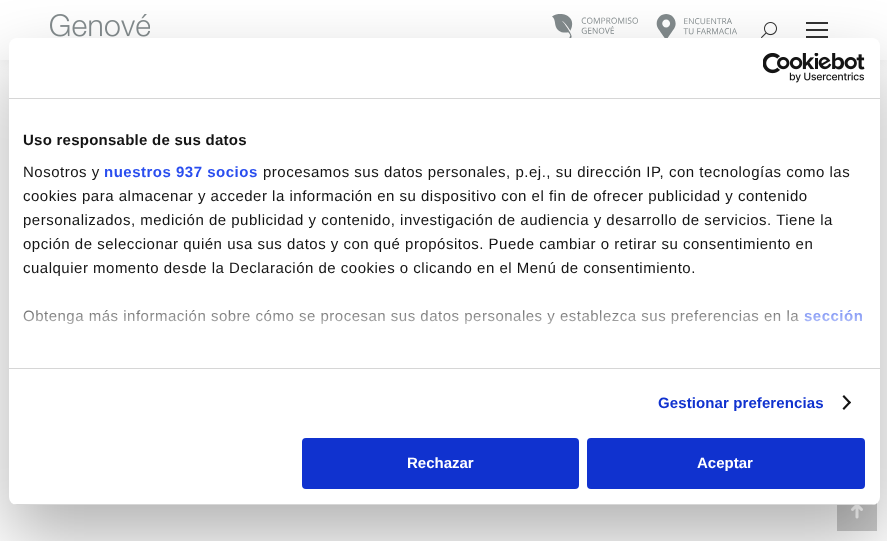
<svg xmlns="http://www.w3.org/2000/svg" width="887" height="541">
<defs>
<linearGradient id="g1" gradientUnits="userSpaceOnUse" x1="438" y1="368" x2="438" y2="293"><stop offset="0" stop-color="#fff"/><stop offset="0.5" stop-color="#fff" stop-opacity="0.8"/><stop offset="1" stop-color="#fff" stop-opacity="0"/></linearGradient>
<clipPath id="clip1"><rect x="9" y="38" width="871" height="467" rx="8"/></clipPath>
</defs>
<rect width="100%" height="100%" fill="#fff"/>
<rect x="-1" y="-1" width="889" height="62" fill="#00000012" filter="blur(7.5px)"/>
<rect width="887" height="60" fill="#fff"/>
<image x="50" y="14" width="100" height="23" href="media/1.png"/>
<image x="552" y="14" width="86" height="24" href="media/2.png"/>
<image x="656" y="14" width="81" height="24" href="media/3.png"/>
<image x="761" y="22" width="16" height="16" href="media/4.png"/>
<rect x="806" y="22" width="22" height="2" fill="#333"/>
<rect x="806" y="29" width="22" height="2" fill="#333"/>
<rect x="806" y="36" width="22" height="2" fill="#333"/>
<rect x="837" y="503" width="40" height="28" fill="#ccc"/>
<image x="851" y="505" width="12" height="14" href="media/5.png"/>
<rect x="9" y="70" width="871" height="467" rx="8" fill="#0000004d" filter="blur(34px)"/>
<rect x="9" y="38" width="871" height="467" rx="8" fill="#fff"/>
<rect x="9" y="98" width="871" height="1" fill="#d6d6d6"/>
<image x="763" y="53" width="102" height="30" href="media/6.png"/>
<rect x="9" y="368" width="871" height="1" fill="#d6d6d6"/>
<text x="23" y="145" style="font-family:Liberation Sans;font-size:15px;font-weight:bold;letter-spacing:0.25px;fill:#141414">Uso responsable de sus datos</text>
<text x="23" y="177" style="font-family:Liberation Sans;font-size:15px;letter-spacing:0.5px;fill:#141414">Nosotros y</text>
<text x="104" y="177" style="font-family:Liberation Sans;font-size:15px;font-weight:bold;letter-spacing:0.5px;fill:#2a4eef">nuestros 937 socios</text>
<text x="263" y="177" style="font-family:Liberation Sans;font-size:15px;letter-spacing:0.5px;fill:#141414">procesamos sus datos personales, p.ej., su dirección IP, con tecnologías como las</text>
<text x="23" y="201" style="font-family:Liberation Sans;font-size:15px;letter-spacing:0.5px;fill:#141414">cookies para almacenar y acceder la información en su dispositivo con el fin de ofrecer publicidad y contenido</text>
<text x="23" y="225" style="font-family:Liberation Sans;font-size:15px;letter-spacing:0.5px;fill:#141414">personalizados, medición de publicidad y contenido, investigación de audiencia y desarrollo de servicios. Tiene la</text>
<text x="23" y="249" style="font-family:Liberation Sans;font-size:15px;letter-spacing:0.5px;fill:#141414">opción de seleccionar quién usa sus datos y con qué propósitos. Puede cambiar o retirar su consentimiento en</text>
<text x="23" y="273" style="font-family:Liberation Sans;font-size:15px;letter-spacing:0.5px;fill:#141414">cualquier momento desde la Declaración de cookies o clicando en el Menú de consentimiento.</text>
<text x="23" y="321" style="font-family:Liberation Sans;font-size:15px;letter-spacing:0.5px;fill:#141414">Obtenga más información sobre cómo se procesan sus datos personales y establezca sus preferencias en la</text>
<text x="804" y="321" style="font-family:Liberation Sans;font-size:15px;font-weight:bold;letter-spacing:0.5px;fill:#2a4eef">sección</text>
<rect x="23" y="309" width="839" height="16" fill="url(#g1)"/>
<text x="658" y="408" style="font-family:Liberation Sans;font-size:15px;font-weight:bold;letter-spacing:0.1px;fill:#1032cf">Gestionar preferencias</text>
<path d="M844 395l7 7.5l-1.5 1.5l-7-7.5z" fill="#141414"/>
<path d="M849.5 401l1.5 1.5l-7 7.5l-1.5-1.5z" fill="#141414"/>
<g clip-path="url(#clip1)">
<rect x="9" y="504" width="871" height="1" fill="#d6d6d6"/>
</g>
<rect x="303" y="439" width="275" height="49" rx="3" fill="#1032cf" stroke="#1032cf" stroke-width="2"/>
<text x="407" y="468" style="font-family:Liberation Sans;font-size:15px;font-weight:bold;fill:#fff">Rechazar</text>
<rect x="588" y="439" width="276" height="49" rx="3" fill="#1032cf" stroke="#1032cf" stroke-width="2"/>
<text x="697" y="468" style="font-family:Liberation Sans;font-size:15px;font-weight:bold;fill:#fff">Aceptar</text>
</svg>
